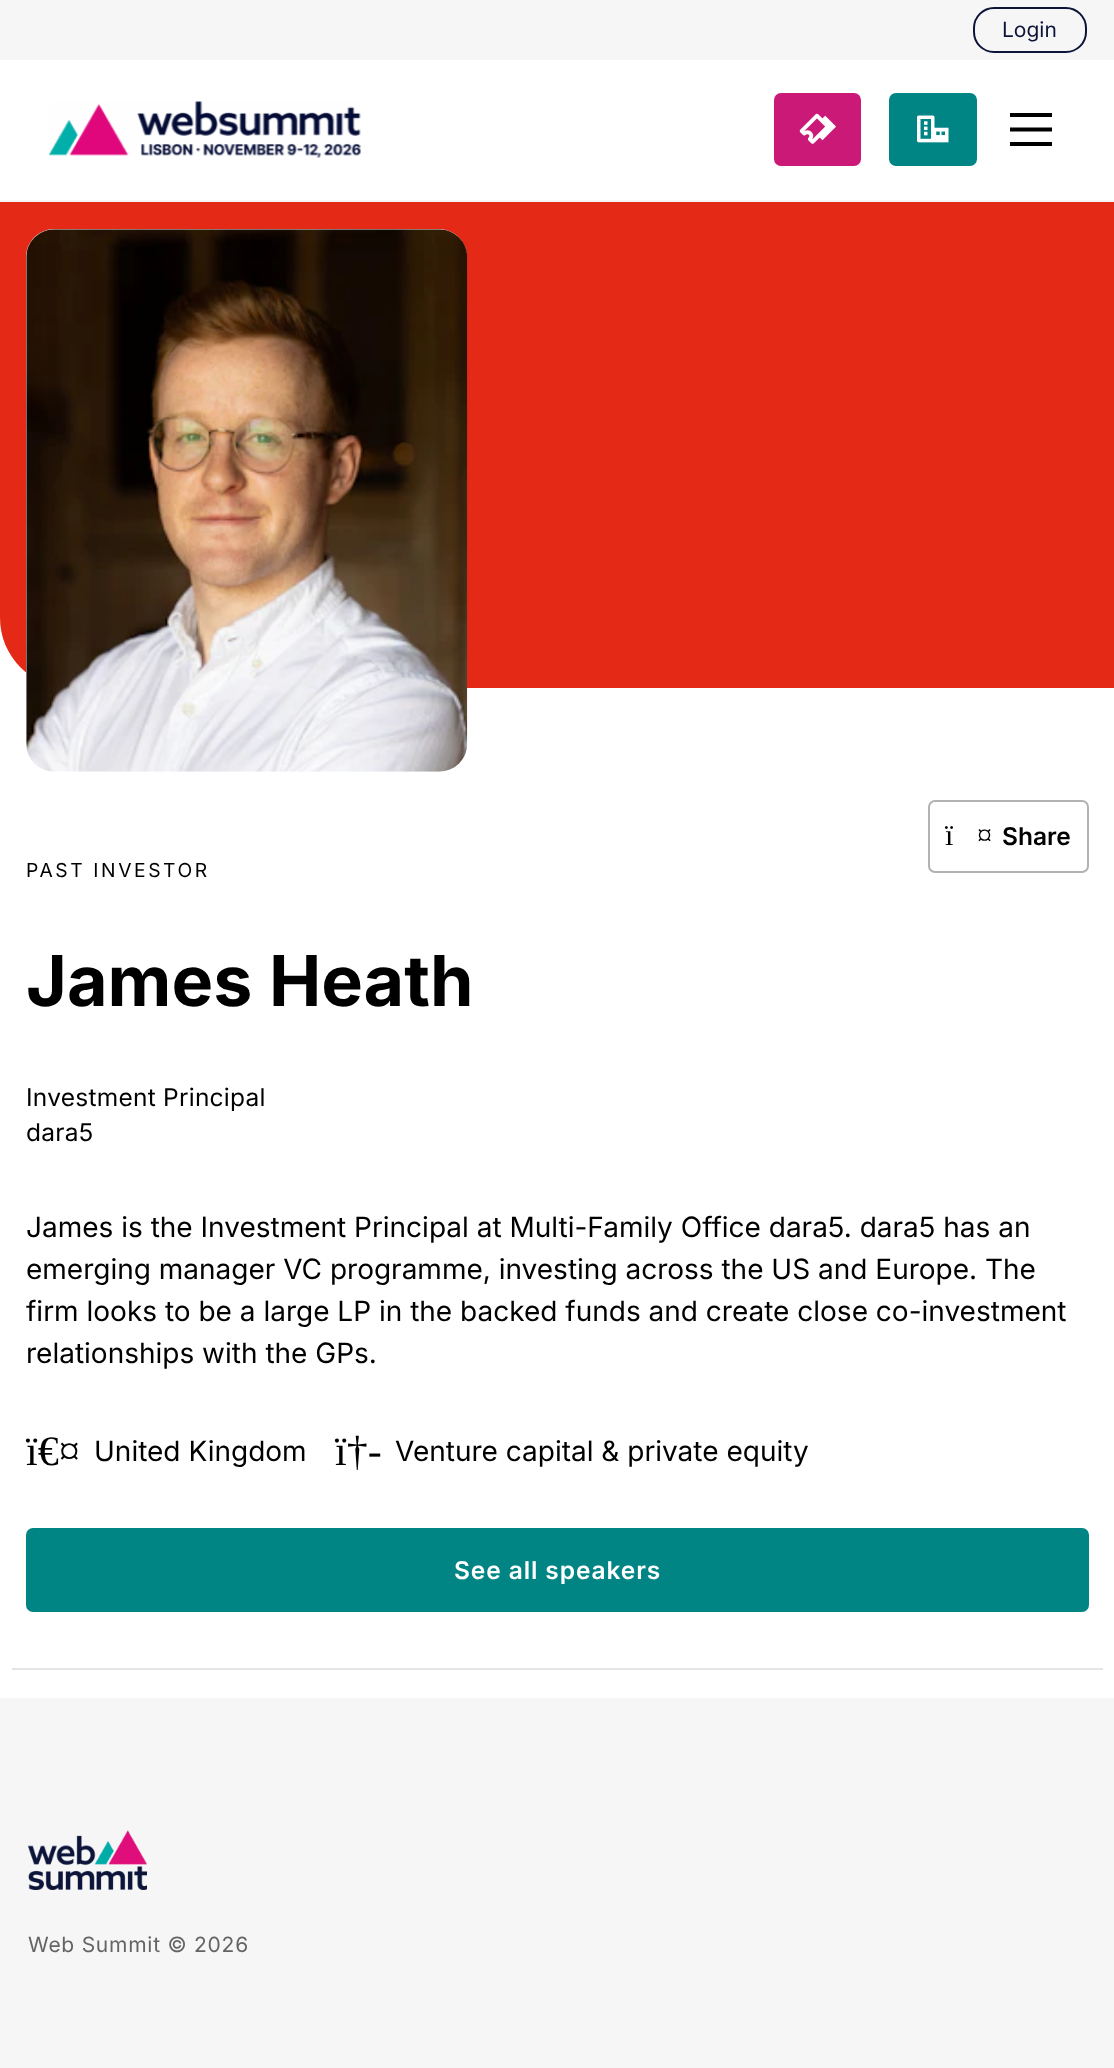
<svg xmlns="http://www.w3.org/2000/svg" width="1114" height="2068">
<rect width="100%" height="100%" fill="#fff"/>
<path d="M0 201h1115v487h-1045c-38.5 0-70-31.5-70-70z" fill="#e52917"/>
<rect y="200" width="1114" height="2" fill="#f6f6f7"/>
<rect width="1114" height="60" fill="#f6f6f7"/>
<rect x="974" y="8" width="112" height="44" rx="20" fill="none" stroke="#0c1439" stroke-width="2"/>
<text x="1002" y="37" style="font-family:Inter;font-size:21px;fill:#0c1439">Login</text>
<image x="49" y="101" width="312" height="57" href="media/1.png"/>
<rect x="775" y="94" width="85" height="71" rx="6" fill="#cb1977" stroke="#cb1977" stroke-width="2"/>
<image x="799" y="113" width="37" height="31" href="media/2.png"/>
<rect x="890" y="94" width="86" height="71" rx="6" fill="#008484" stroke="#008484" stroke-width="2"/>
<image x="917" y="115" width="32" height="28" href="media/3.png"/>
<rect x="1010" y="113" width="42" height="4" fill="#000"/>
<path d="M1010 129.5h42" fill="none" stroke="#000" stroke-width="4.2"/>
<rect x="1010" y="142" width="42" height="4" fill="#000"/>
<rect x="26" y="229" width="441" height="543" rx="28" fill="#fff"/>
<image x="26" y="229" width="442" height="543" href="media/4.png"/>
<rect x="929" y="801" width="159" height="71" rx="6" fill="none" stroke="#b2b2b2" stroke-width="2"/>
<text x="945" y="845" style="font-family:Liberation Serif;font-size:30px;fill:#000">ï</text>
<text x="977" y="845" style="font-family:Liberation Serif;font-size:30px;fill:#000">¤</text>
<text x="1002" y="845" style="font-family:Inter;font-size:24.5px;font-weight:600;fill:#000">Share</text>
<text x="26" y="877" style="font-family:Inter;font-size:19.25px;letter-spacing:2.6px;fill:#000">PAST INVESTOR</text>
<text x="26" y="1006" style="font-family:Inter;font-size:70px;font-weight:bold;fill:#000">James Heath</text>
<text x="26" y="1106" style="font-family:Inter;font-size:24.5px;letter-spacing:0.25px;fill:#000">Investment Principal</text>
<text x="26" y="1141" style="font-family:Inter;font-size:24.5px;letter-spacing:0.25px;fill:#000">dara5</text>
<text x="26" y="1237" style="font-family:Inter;font-size:28px;fill:#000">James is the Investment Principal at Multi-Family Office dara5. dara5 has an</text>
<text x="26" y="1279" style="font-family:Inter;font-size:28px;fill:#000">emerging manager VC programme, investing across the US and Europe. The</text>
<text x="26" y="1321" style="font-family:Inter;font-size:28px;fill:#000">firm looks to be a large LP in the backed funds and create close co-investment</text>
<text x="26" y="1363" style="font-family:Inter;font-size:28px;fill:#000">relationships with the GPs.</text>
<text x="26" y="1465" style="font-family:Liberation Serif;font-size:42px;fill:#000">ï€¤</text>
<text x="94" y="1461" style="font-family:Inter;font-size:28px;fill:#000">United Kingdom</text>
<text x="335" y="1465" style="font-family:Liberation Serif;font-size:42px;fill:#000">ï†-</text>
<text x="395" y="1461" style="font-family:Inter;font-size:28px;fill:#000">Venture capital &amp; private equity</text>
<rect x="12" y="1668" width="1091" height="2" fill="#e5e5e5"/>
<rect x="27" y="1529" width="1061" height="82" rx="6" fill="#008484" stroke="#008484" stroke-width="2"/>
<text x="454" y="1579" style="font-family:Inter;font-size:24.5px;font-weight:600;letter-spacing:0.9px;fill:#fff">See all speakers</text>
<rect y="1698" width="1114" height="370" fill="#f6f6f7"/>
<image x="28" y="1830" width="119" height="60" href="media/5.png"/>
<text x="28" y="1952" style="font-family:Inter;font-size:21px;letter-spacing:0.75px;fill:#646464">Web Summit © 2026</text>
</svg>
